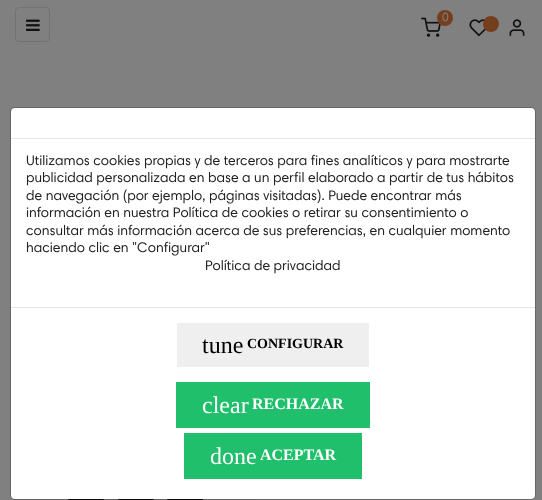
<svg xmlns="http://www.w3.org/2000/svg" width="542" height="500">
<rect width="100%" height="100%" fill="#808080"/>
<rect x="15.5" y="7.5" width="34" height="34" rx="3.5" fill="none" stroke="#737373"/>
<image x="26" y="19" width="14" height="12" href="media/1.png"/>
<image x="421" y="17" width="20" height="20" href="media/2.png"/>
<circle cx="445" cy="18" r="8" fill="#753f1f"/>
<text x="442" y="21" style="font-family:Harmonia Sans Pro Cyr;font-size:12px;fill:#808080">0</text>
<image x="469" y="19" width="17" height="18" href="media/3.png"/>
<circle cx="491" cy="24" r="8" fill="#753f1f"/>
<image x="509" y="19" width="16" height="17" href="media/4.png"/>
<image x="15" y="499" width="241" height="1" href="media/5.png"/>
<rect x="66" y="492" width="40" height="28" rx="20" fill="#111"/>
<rect x="116" y="492" width="40" height="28" rx="20" fill="#111"/>
<rect x="165" y="492" width="40" height="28" rx="20" fill="#111"/>
<rect x="11" y="108" width="524" height="391" rx="4" fill="#fff"/>
<rect x="10.5" y="107.5" width="525" height="392" rx="4.5" fill="none" stroke="#00000033"/>
<rect x="11" y="138" width="524" height="1" fill="#e5e5e5"/>
<text x="26" y="165" style="font-family:Harmonia Sans Pro Cyr;font-size:14px;fill:#222">Utilizamos cookies propias y de terceros para fines analíticos y para mostrarte</text>
<text x="26" y="182" style="font-family:Harmonia Sans Pro Cyr;font-size:14px;fill:#222">publicidad personalizada en base a un perfil elaborado a partir de tus hábitos</text>
<text x="26" y="200" style="font-family:Harmonia Sans Pro Cyr;font-size:14px;fill:#222">de navegación (por ejemplo, páginas visitadas). Puede encontrar más</text>
<text x="26" y="217" style="font-family:Harmonia Sans Pro Cyr;font-size:14px;fill:#222">información en nuestra Política de cookies o retirar su consentimiento o</text>
<text x="26" y="235" style="font-family:Harmonia Sans Pro Cyr;font-size:14px;fill:#222">consultar más información acerca de sus preferencias, en cualquier momento</text>
<text x="26" y="252" style="font-family:Harmonia Sans Pro Cyr;font-size:14px;fill:#222">haciendo clic en "Configurar"</text>
<text x="205" y="270" style="font-family:Harmonia Sans Pro Cyr;font-size:14px;fill:#222">Política de privacidad</text>
<rect x="11" y="307" width="524" height="1" fill="#e5e5e5"/>
<rect x="177" y="323" width="192" height="44" fill="#efefef"/>
<text x="202" y="353" style="font-family:Liberation Serif;font-size:24px;fill:#000">tune</text>
<text x="247" y="348" style="font-family:Liberation Serif;font-size:14px;font-weight:bold;fill:#000">CONFIGURAR</text>
<rect x="176" y="382" width="194" height="46" fill="#20bf6b"/>
<text x="202" y="413" style="font-family:Liberation Serif;font-size:24px;fill:#fff">clear</text>
<text x="252" y="409" style="font-family:Liberation Serif;font-size:16px;font-weight:bold;fill:#fff">RECHAZAR</text>
<rect x="184" y="433" width="178" height="46" fill="#20bf6b"/>
<text x="210" y="464" style="font-family:Liberation Serif;font-size:24px;fill:#fff">done</text>
<text x="260" y="460" style="font-family:Liberation Serif;font-size:16px;font-weight:bold;fill:#fff">ACEPTAR</text>
</svg>
